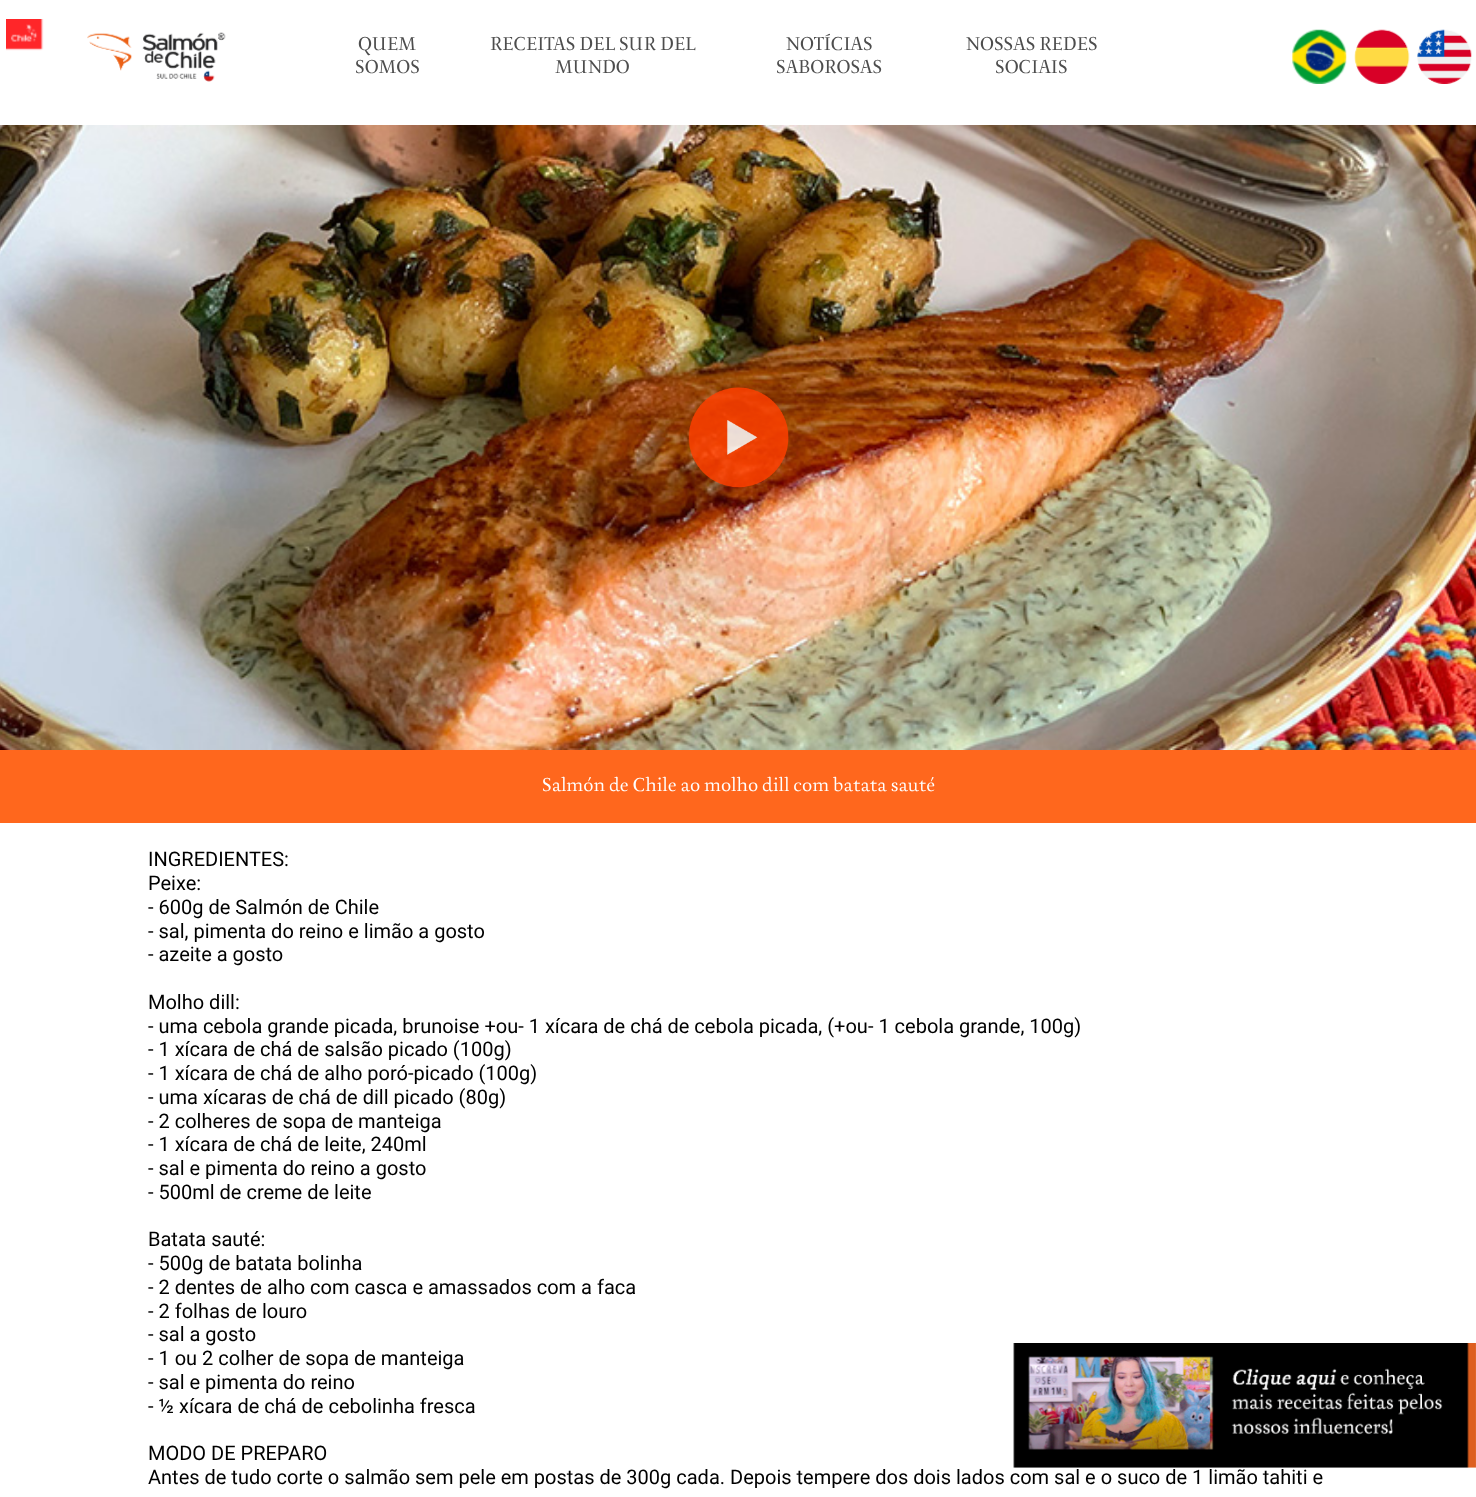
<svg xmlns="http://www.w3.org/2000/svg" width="1476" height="1497">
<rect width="100%" height="100%" fill="#fff"/>
<image x="6" y="19" width="38" height="32" href="media/1.png"/>
<image x="87" y="32" width="139" height="50" href="media/2.png"/>
<text x="358" y="50" style="font-family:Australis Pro;font-size:20px;fill:#4d4d4d">QUEM</text>
<text x="355" y="73" style="font-family:Australis Pro;font-size:20px;fill:#4d4d4d">SOMOS</text>
<text x="490" y="50" style="font-family:Australis Pro;font-size:20px;fill:#4d4d4d">RECEITAS DEL SUR DEL</text>
<text x="555" y="73" style="font-family:Australis Pro;font-size:20px;fill:#4d4d4d">MUNDO</text>
<text x="786" y="50" style="font-family:Australis Pro;font-size:20px;fill:#4d4d4d">NOTÍCIAS</text>
<text x="776" y="73" style="font-family:Australis Pro;font-size:20px;fill:#4d4d4d">SABOROSAS</text>
<text x="966" y="50" style="font-family:Australis Pro;font-size:20px;fill:#4d4d4d">NOSSAS REDES</text>
<text x="995" y="73" style="font-family:Australis Pro;font-size:20px;fill:#4d4d4d">SOCIAIS</text>
<image x="1292" y="29" width="55" height="55" href="media/3.png"/>
<image x="1354" y="29" width="56" height="55" href="media/4.png"/>
<image x="1417" y="29" width="55" height="55" href="media/5.png"/>
<image x="0" y="125" width="1476" height="625" href="media/6.png"/>
<image x="688" y="387" width="101" height="101" href="media/7.png"/>
<rect y="750" width="1476" height="73" fill="#ff671d"/>
<text x="542" y="791" style="font-family:Australis Pro;font-size:20px;fill:#fff">Salmón de Chile ao molho dill com batata sauté</text>
<text x="148" y="866" style="font-family:Roboto;font-size:20px;fill:#000">INGREDIENTES:</text>
<text x="148" y="890" style="font-family:Roboto;font-size:20px;fill:#000">Peixe:</text>
<text x="148" y="914" style="font-family:Roboto;font-size:20px;fill:#000">- 600g de Salmón de Chile</text>
<text x="148" y="938" style="font-family:Roboto;font-size:20px;fill:#000">- sal, pimenta do reino e limão a gosto</text>
<text x="148" y="961" style="font-family:Roboto;font-size:20px;fill:#000">- azeite a gosto</text>
<text x="148" y="1009" style="font-family:Roboto;font-size:20px;fill:#000">Molho dill:</text>
<text x="148" y="1033" style="font-family:Roboto;font-size:20px;fill:#000">- uma cebola grande picada, brunoise +ou- 1 xícara de chá de cebola picada, (+ou- 1 cebola grande, 100g)</text>
<text x="148" y="1056" style="font-family:Roboto;font-size:20px;fill:#000">- 1 xícara de chá de salsão picado (100g)</text>
<text x="148" y="1080" style="font-family:Roboto;font-size:20px;fill:#000">- 1 xícara de chá de alho poró-picado (100g)</text>
<text x="148" y="1104" style="font-family:Roboto;font-size:20px;fill:#000">- uma xícaras de chá de dill picado (80g)</text>
<text x="148" y="1128" style="font-family:Roboto;font-size:20px;fill:#000">- 2 colheres de sopa de manteiga</text>
<text x="148" y="1151" style="font-family:Roboto;font-size:20px;fill:#000">- 1 xícara de chá de leite, 240ml</text>
<text x="148" y="1175" style="font-family:Roboto;font-size:20px;fill:#000">- sal e pimenta do reino a gosto</text>
<text x="148" y="1199" style="font-family:Roboto;font-size:20px;fill:#000">- 500ml de creme de leite</text>
<text x="148" y="1246" style="font-family:Roboto;font-size:20px;fill:#000">Batata sauté:</text>
<text x="148" y="1270" style="font-family:Roboto;font-size:20px;fill:#000">- 500g de batata bolinha</text>
<text x="148" y="1294" style="font-family:Roboto;font-size:20px;fill:#000">- 2 dentes de alho com casca e amassados com a faca</text>
<text x="148" y="1318" style="font-family:Roboto;font-size:20px;fill:#000">- 2 folhas de louro</text>
<text x="148" y="1341" style="font-family:Roboto;font-size:20px;fill:#000">- sal a gosto</text>
<text x="148" y="1365" style="font-family:Roboto;font-size:20px;fill:#000">- 1 ou 2 colher de sopa de manteiga</text>
<text x="148" y="1389" style="font-family:Roboto;font-size:20px;fill:#000">- sal e pimenta do reino</text>
<text x="148" y="1413" style="font-family:Roboto;font-size:20px;fill:#000">- ½ xícara de chá de cebolinha fresca</text>
<text x="148" y="1460" style="font-family:Roboto;font-size:20px;fill:#000">MODO DE PREPARO</text>
<text x="148" y="1484" style="font-family:Roboto;font-size:20px;fill:#000">Antes de tudo corte o salmão sem pele em postas de 300g cada. Depois tempere dos dois lados com sal e o suco de 1 limão tahiti e</text>
<image x="1013" y="1343" width="463" height="125" href="media/8.png"/>
</svg>
